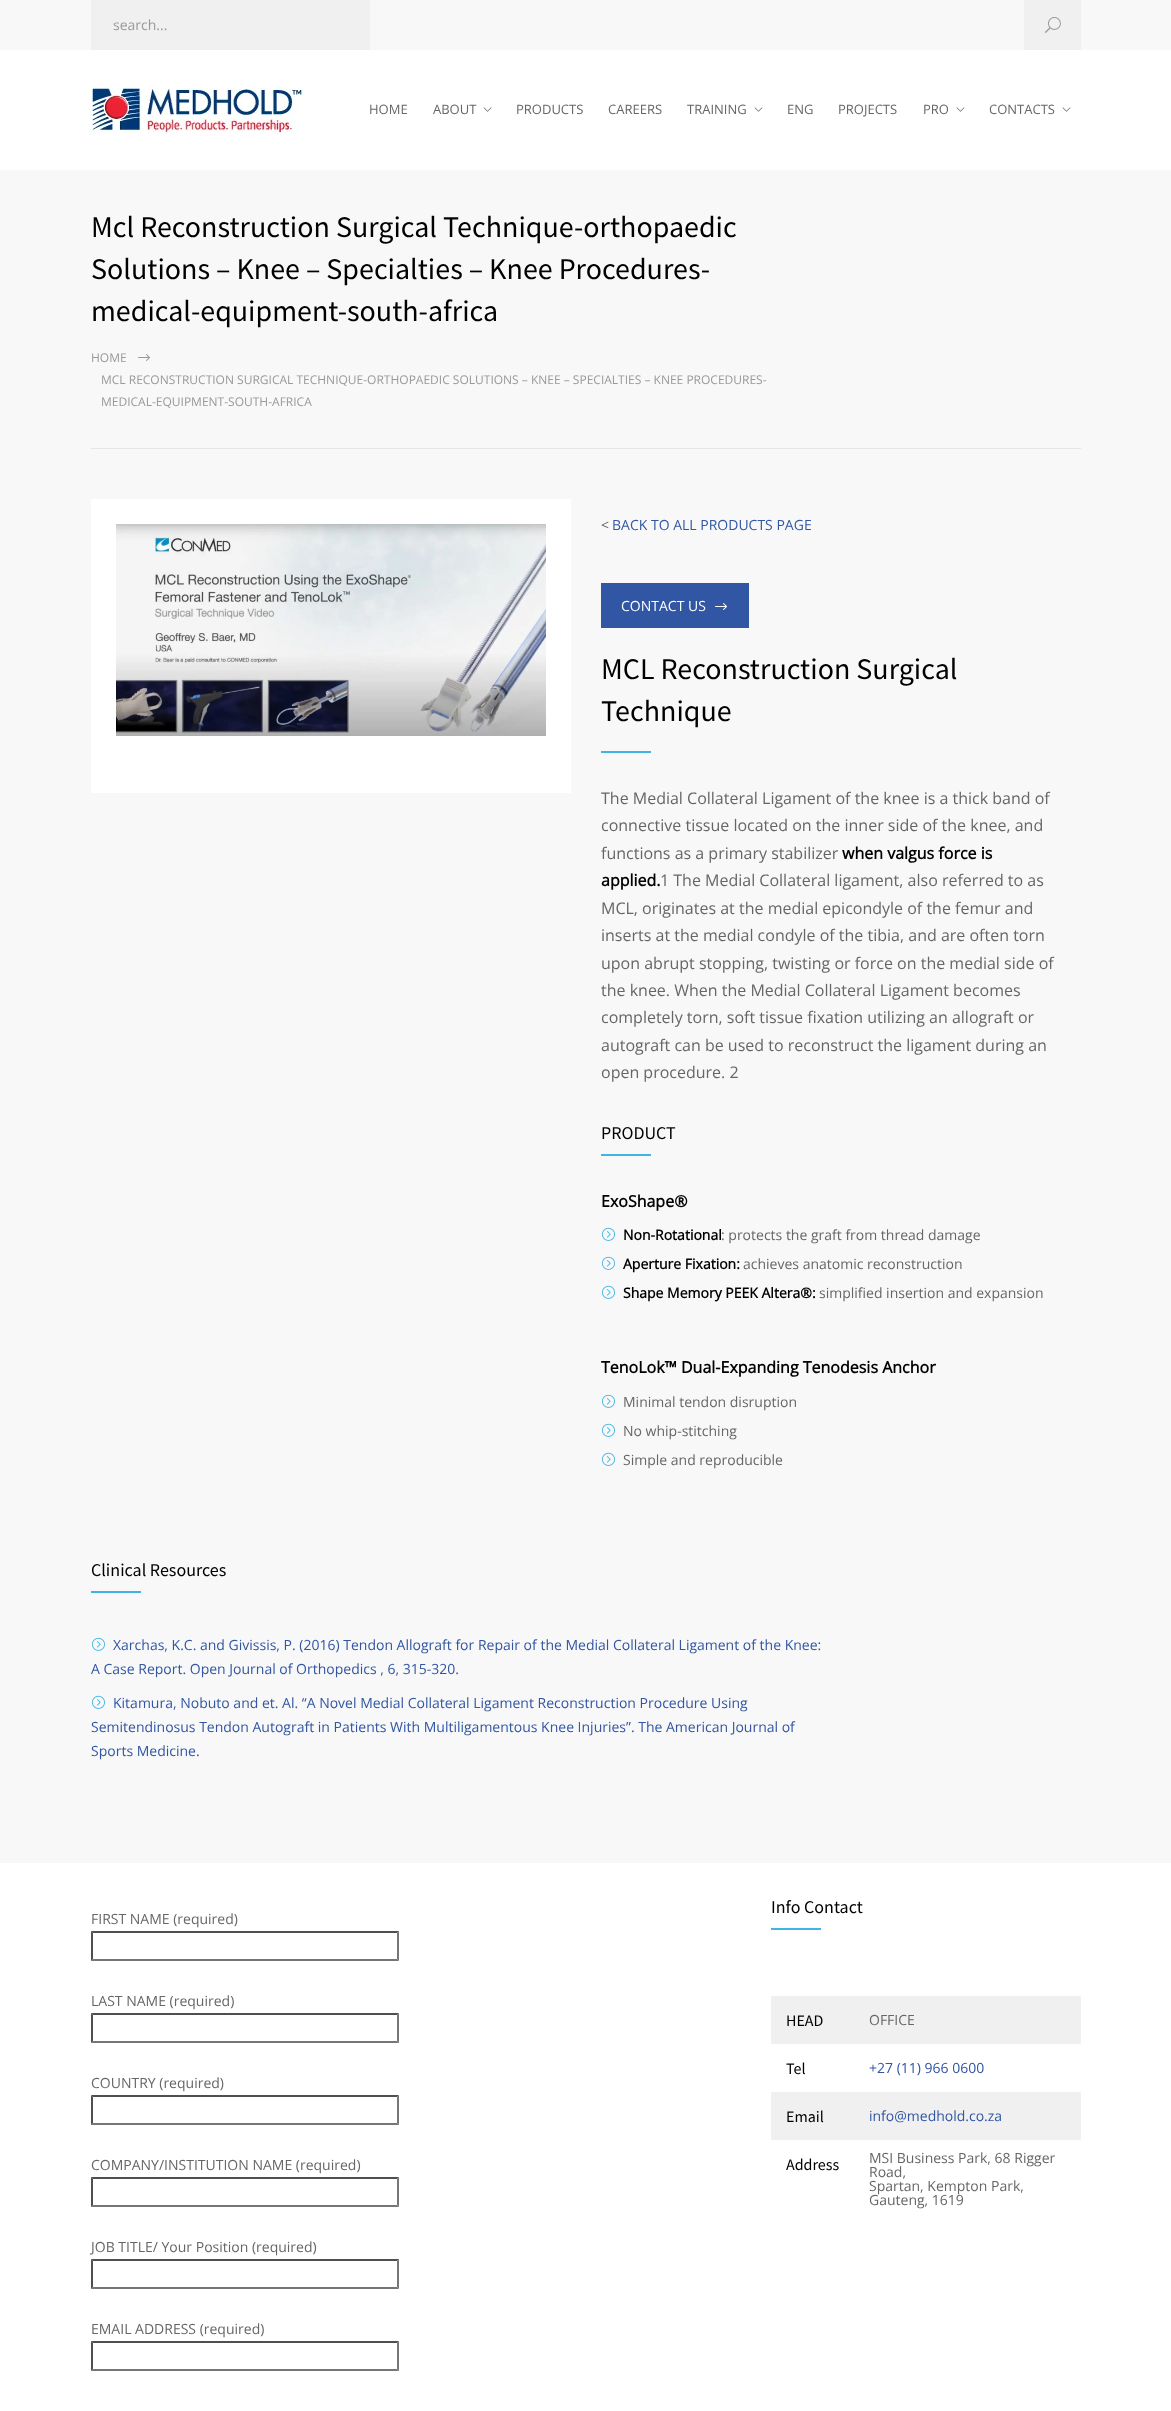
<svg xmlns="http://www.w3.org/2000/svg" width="1171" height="2411">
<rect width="100%" height="100%" fill="#f8f8f8"/>
<rect x="91" width="279" height="50" fill="#f0f0f0"/>
<text x="113" y="30" style="font-family:Open Sans;font-size:14px;fill:#999">search...</text>
<rect x="1024" width="57" height="50" fill="#f0f0f0"/>
<image x="1045" y="17" width="16" height="16" href="media/1.png"/>
<rect y="50" width="1171" height="120" fill="#fff"/>
<image x="91" y="87" width="214" height="47" href="media/2.png"/>
<text x="369" y="114" style="font-family:Open Sans;font-size:13px;fill:#666">HOME</text>
<text x="433" y="114" style="font-family:Open Sans;font-size:13px;fill:#666">ABOUT</text>
<image x="483" y="107" width="9" height="5" href="media/3.png"/>
<text x="516" y="114" style="font-family:Open Sans;font-size:13px;fill:#666">PRODUCTS</text>
<text x="608" y="114" style="font-family:Open Sans;font-size:13px;fill:#666">CAREERS</text>
<text x="687" y="114" style="font-family:Open Sans;font-size:13px;fill:#666">TRAINING</text>
<image x="754" y="107" width="9" height="5" href="media/3.png"/>
<text x="787" y="114" style="font-family:Open Sans;font-size:13px;fill:#666">ENG</text>
<text x="838" y="114" style="font-family:Open Sans;font-size:13px;fill:#666">PROJECTS</text>
<text x="923" y="114" style="font-family:Open Sans;font-size:13px;fill:#666">PRO</text>
<image x="956" y="107" width="9" height="5" href="media/3.png"/>
<text x="989" y="114" style="font-family:Open Sans;font-size:13px;fill:#666">CONTACTS</text>
<image x="1062" y="107" width="9" height="5" href="media/3.png"/>
<rect x="91" y="448" width="990" height="1" fill="#e5e5e5"/>
<text x="91" y="237" style="font-family:Source Sans Pro;font-size:30px;fill:#000">Mcl Reconstruction Surgical Technique-orthopaedic</text>
<text x="91" y="279" style="font-family:Source Sans Pro;font-size:30px;fill:#000">Solutions – Knee – Specialties – Knee Procedures-</text>
<text x="91" y="321" style="font-family:Source Sans Pro;font-size:30px;fill:#000">medical-equipment-south-africa</text>
<text x="91" y="362" style="font-family:Open Sans;font-size:12px;fill:#999">HOME</text>
<image x="138" y="354" width="12" height="7" href="media/4.png"/>
<text x="101" y="384" style="font-family:Open Sans;font-size:12px;fill:#999">MCL RECONSTRUCTION SURGICAL TECHNIQUE-ORTHOPAEDIC SOLUTIONS – KNEE – SPECIALTIES – KNEE PROCEDURES-</text>
<text x="101" y="406" style="font-family:Open Sans;font-size:12px;fill:#999">MEDICAL-EQUIPMENT-SOUTH-AFRICA</text>
<rect x="91" y="499" width="480" height="294" fill="#fff"/>
<image x="116" y="524" width="430" height="212" href="media/5.png"/>
<text x="601" y="530" style="font-family:Open Sans;font-size:14px;fill:#666">&lt;</text>
<text x="612" y="530" style="font-family:Open Sans;font-size:14px;fill:#3156a3">BACK TO ALL PRODUCTS PAGE</text>
<rect x="601" y="583" width="148" height="45" fill="#3156a3"/>
<text x="621" y="611" style="font-family:Open Sans;font-size:14px;fill:#fff">CONTACT US</text>
<image x="715" y="603" width="12" height="7" href="media/6.png"/>
<text x="601" y="679" style="font-family:Source Sans Pro;font-size:30px;fill:#000">MCL Reconstruction Surgical</text>
<text x="601" y="721" style="font-family:Source Sans Pro;font-size:30px;fill:#000">Technique</text>
<rect x="601" y="751" width="50" height="2" fill="#42b3e5"/>
<text x="601" y="804" style="font-family:Open Sans;font-size:16px;fill:#666">The Medial Collateral Ligament of the knee is a thick band of</text>
<text x="601" y="831" style="font-family:Open Sans;font-size:16px;fill:#666">connective tissue located on the inner side of the knee, and</text>
<text x="601" y="859" style="font-family:Open Sans;font-size:16px;fill:#666">functions as a primary stabilizer</text>
<text x="842" y="859" style="font-family:Open Sans;font-size:16px;font-weight:bold;fill:#000">when valgus force is</text>
<text x="601" y="886" style="font-family:Open Sans;font-size:16px;font-weight:bold;fill:#000">applied.</text>
<text x="660" y="886" style="font-family:Open Sans;font-size:16px;fill:#666">1 The Medial Collateral ligament, also referred to as</text>
<text x="601" y="914" style="font-family:Open Sans;font-size:16px;fill:#666">MCL, originates at the medial epicondyle of the femur and</text>
<text x="601" y="941" style="font-family:Open Sans;font-size:16px;fill:#666">inserts at the medial condyle of the tibia, and are often torn</text>
<text x="601" y="969" style="font-family:Open Sans;font-size:16px;fill:#666">upon abrupt stopping, twisting or force on the medial side of</text>
<text x="601" y="996" style="font-family:Open Sans;font-size:16px;fill:#666">the knee. When the Medial Collateral Ligament becomes</text>
<text x="601" y="1023" style="font-family:Open Sans;font-size:16px;fill:#666">completely torn, soft tissue fixation utilizing an allograft or</text>
<text x="601" y="1051" style="font-family:Open Sans;font-size:16px;fill:#666">autograft can be used to reconstruct the ligament during an</text>
<text x="601" y="1078" style="font-family:Open Sans;font-size:16px;fill:#666">open procedure. 2</text>
<text x="601" y="1139" style="font-family:Source Sans Pro;font-size:18px;fill:#000">PRODUCT</text>
<rect x="601" y="1154" width="50" height="2" fill="#42b3e5"/>
<text x="601" y="1207" style="font-family:Open Sans;font-size:16px;font-weight:bold;fill:#000">ExoShape®</text>
<image x="601" y="1227" width="14" height="14" href="media/7.png"/>
<text x="623" y="1240" style="font-family:Open Sans;font-size:14px;font-weight:bold;fill:#000">Non-Rotational</text>
<text x="721" y="1240" style="font-family:Open Sans;font-size:14px;fill:#666">: protects the graft from thread damage</text>
<image x="601" y="1256" width="14" height="14" href="media/7.png"/>
<text x="623" y="1269" style="font-family:Open Sans;font-size:14px;font-weight:bold;fill:#000">Aperture Fixation:</text>
<text x="743" y="1269" style="font-family:Open Sans;font-size:14px;fill:#666">achieves anatomic reconstruction</text>
<image x="601" y="1285" width="14" height="14" href="media/7.png"/>
<text x="623" y="1298" style="font-family:Open Sans;font-size:14px;font-weight:bold;fill:#000">Shape Memory PEEK Altera®:</text>
<text x="819" y="1298" style="font-family:Open Sans;font-size:14px;fill:#666">simplified insertion and expansion</text>
<text x="601" y="1373" style="font-family:Open Sans;font-size:16px;font-weight:bold;fill:#000">TenoLok™ Dual-Expanding Tenodesis Anchor</text>
<image x="601" y="1394" width="14" height="14" href="media/7.png"/>
<text x="623" y="1407" style="font-family:Open Sans;font-size:14px;fill:#666">Minimal tendon disruption</text>
<image x="601" y="1423" width="14" height="14" href="media/7.png"/>
<text x="623" y="1436" style="font-family:Open Sans;font-size:14px;fill:#666">No whip-stitching</text>
<image x="601" y="1452" width="14" height="14" href="media/7.png"/>
<text x="623" y="1465" style="font-family:Open Sans;font-size:14px;fill:#666">Simple and reproducible</text>
<text x="91" y="1576" style="font-family:Source Sans Pro;font-size:18px;fill:#000">Clinical Resources</text>
<rect x="91" y="1591" width="50" height="2" fill="#42b3e5"/>
<image x="91" y="1637" width="14" height="14" href="media/7.png"/>
<text x="113" y="1650" style="font-family:Open Sans;font-size:14px;fill:#3156a3">Xarchas, K.C. and Givissis, P. (2016) Tendon Allograft for Repair of the Medial Collateral Ligament of the Knee:</text>
<text x="91" y="1674" style="font-family:Open Sans;font-size:14px;fill:#3156a3">A Case Report. Open Journal of Orthopedics , 6, 315-320.</text>
<image x="91" y="1695" width="14" height="14" href="media/7.png"/>
<text x="113" y="1708" style="font-family:Open Sans;font-size:14px;fill:#3156a3">Kitamura, Nobuto and et. Al. “A Novel Medial Collateral Ligament Reconstruction Procedure Using</text>
<text x="91" y="1732" style="font-family:Open Sans;font-size:14px;fill:#3156a3">Semitendinosus Tendon Autograft in Patients With Multiligamentous Knee Injuries”. The American Journal of</text>
<text x="91" y="1756" style="font-family:Open Sans;font-size:14px;fill:#3156a3">Sports Medicine.</text>
<rect y="1863" width="1171" height="548" fill="#fff"/>
<text x="91" y="1924" style="font-family:Open Sans;font-size:14px;fill:#666">FIRST NAME (required)</text>
<path d="M91 1931h308l-2 2h-304z" fill="#4f4f4f"/>
<path d="M399 1931v30l-2-2v-26z" fill="#767676"/>
<path d="M399 1961h-308l2-2h304z" fill="#767676"/>
<path d="M91 1961v-30l2 2v26z" fill="#4f4f4f"/>
<text x="91" y="2006" style="font-family:Open Sans;font-size:14px;fill:#666">LAST NAME (required)</text>
<path d="M91 2013h308l-2 2h-304z" fill="#4f4f4f"/>
<path d="M399 2013v30l-2-2v-26z" fill="#767676"/>
<path d="M399 2043h-308l2-2h304z" fill="#767676"/>
<path d="M91 2043v-30l2 2v26z" fill="#4f4f4f"/>
<text x="91" y="2088" style="font-family:Open Sans;font-size:14px;fill:#666">COUNTRY (required)</text>
<path d="M91 2095h308l-2 2h-304z" fill="#4f4f4f"/>
<path d="M399 2095v30l-2-2v-26z" fill="#767676"/>
<path d="M399 2125h-308l2-2h304z" fill="#767676"/>
<path d="M91 2125v-30l2 2v26z" fill="#4f4f4f"/>
<text x="91" y="2170" style="font-family:Open Sans;font-size:14px;fill:#666">COMPANY/INSTITUTION NAME (required)</text>
<path d="M91 2177h308l-2 2h-304z" fill="#4f4f4f"/>
<path d="M399 2177v30l-2-2v-26z" fill="#767676"/>
<path d="M399 2207h-308l2-2h304z" fill="#767676"/>
<path d="M91 2207v-30l2 2v26z" fill="#4f4f4f"/>
<text x="91" y="2252" style="font-family:Open Sans;font-size:14px;fill:#666">JOB TITLE/ Your Position (required)</text>
<path d="M91 2259h308l-2 2h-304z" fill="#4f4f4f"/>
<path d="M399 2259v30l-2-2v-26z" fill="#767676"/>
<path d="M399 2289h-308l2-2h304z" fill="#767676"/>
<path d="M91 2289v-30l2 2v26z" fill="#4f4f4f"/>
<text x="91" y="2334" style="font-family:Open Sans;font-size:14px;fill:#666">EMAIL ADDRESS (required)</text>
<path d="M91 2341h308l-2 2h-304z" fill="#4f4f4f"/>
<path d="M399 2341v30l-2-2v-26z" fill="#767676"/>
<path d="M399 2371h-308l2-2h304z" fill="#767676"/>
<path d="M91 2371v-30l2 2v26z" fill="#4f4f4f"/>
<text x="771" y="1913" style="font-family:Source Sans Pro;font-size:18px;fill:#000">Info Contact</text>
<rect x="771" y="1928" width="50" height="2" fill="#42b3e5"/>
<rect x="771" y="1996" width="310" height="48" fill="#f0f0f0"/>
<text x="786" y="2026" style="font-family:Source Sans Pro;font-size:16px;fill:#000">HEAD</text>
<text x="869" y="2025" style="font-family:Open Sans;font-size:14px;fill:#666">OFFICE</text>
<text x="786" y="2074" style="font-family:Source Sans Pro;font-size:16px;fill:#000">Tel</text>
<text x="869" y="2073" style="font-family:Open Sans;font-size:14px;fill:#3156a3">+27 (11) 966 0600</text>
<rect x="771" y="2092" width="310" height="48" fill="#f0f0f0"/>
<text x="786" y="2122" style="font-family:Source Sans Pro;font-size:16px;fill:#000">Email</text>
<text x="869" y="2121" style="font-family:Open Sans;font-size:14px;fill:#3156a3">info@medhold.co.za</text>
<text x="786" y="2170" style="font-family:Source Sans Pro;font-size:16px;fill:#000">Address</text>
<text x="869" y="2163" style="font-family:Open Sans;font-size:14px;fill:#666">MSI Business Park, 68 Rigger</text>
<text x="869" y="2177" style="font-family:Open Sans;font-size:14px;fill:#666">Road,</text>
<text x="869" y="2191" style="font-family:Open Sans;font-size:14px;fill:#666">Spartan, Kempton Park,</text>
<text x="869" y="2205" style="font-family:Open Sans;font-size:14px;fill:#666">Gauteng, 1619</text>
</svg>
